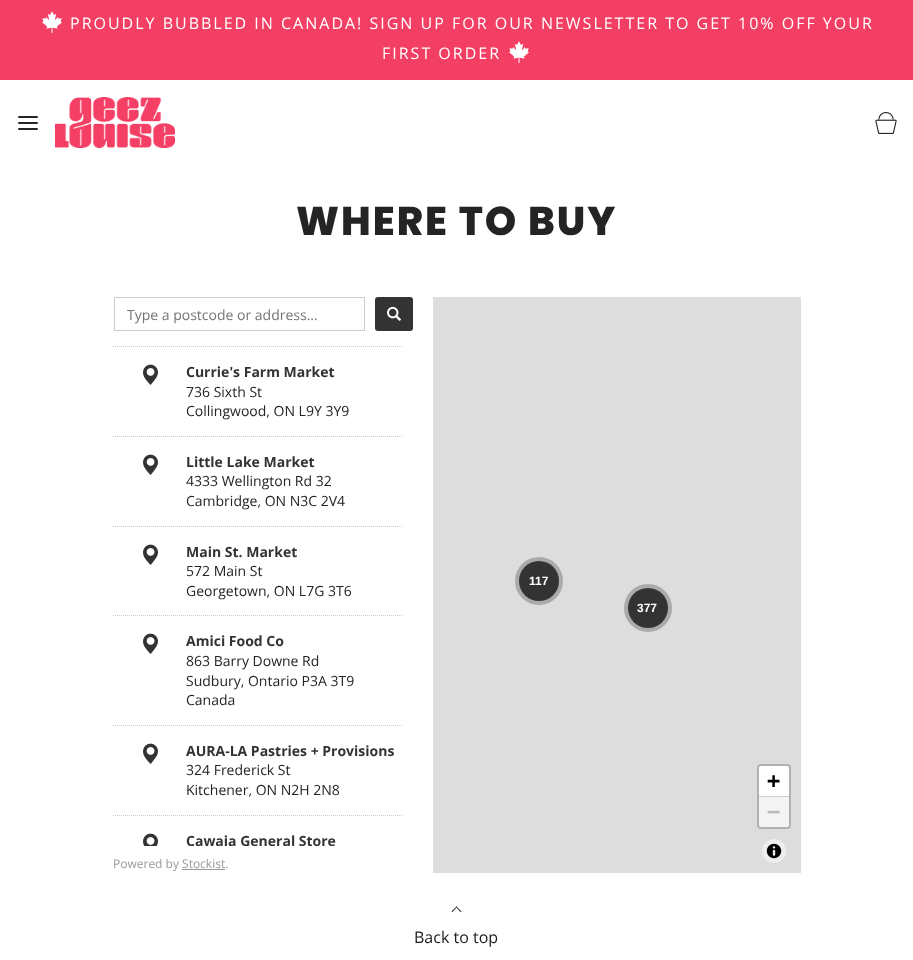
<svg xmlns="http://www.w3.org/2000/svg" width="913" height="960">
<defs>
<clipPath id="clip1"><rect x="113" y="346" width="300" height="500"/></clipPath>
</defs>
<rect width="100%" height="100%" fill="#fff"/>
<rect width="913" height="80" fill="#f43f65"/>
<image x="42" y="11" width="20" height="22" href="media/1.png"/>
<text x="70" y="29" style="font-family:Open Sans;font-size:16px;letter-spacing:2px;fill:#fff">PROUDLY BUBBLED IN CANADA! SIGN UP FOR OUR NEWSLETTER TO GET 10% OFF YOUR</text>
<text x="382" y="59" style="font-family:Open Sans;font-size:16px;letter-spacing:2px;fill:#fff">FIRST ORDER</text>
<image x="509" y="41" width="20" height="22" href="media/1.png"/>
<path d="M19 123h18m-18-6h18m-18 12h18" fill="none" stroke="#242424" stroke-width="2" stroke-linecap="round" stroke-linejoin="round"/>
<image x="55" y="97" width="120" height="51" href="media/2.png"/>
<image x="875" y="112" width="22" height="22" href="media/3.png"/>
<text x="296" y="235" style="font-family:Poppins;font-size:40px;font-weight:800;letter-spacing:2px;fill:#242424">WHERE TO BUY</text>
<rect x="114.5" y="297.5" width="250" height="33" fill="none" stroke="#ccc"/>
<text x="127" y="320" style="font-family:Open Sans;font-size:14px;fill:#757575">Type a postcode or address...</text>
<rect x="375" y="297" width="38" height="34" rx="3" fill="#333"/>
<image x="387" y="306" width="14" height="15" href="media/4.png"/>
<path d="M113 346.5h290" fill="none" stroke="#ccc" stroke-dasharray="1 1"/>
<image x="143" y="364" width="15" height="21" href="media/5.png"/>
<text x="186" y="377" style="font-family:Open Sans;font-size:14px;font-weight:bold;fill:#333">Currie's Farm Market</text>
<text x="186" y="397" style="font-family:Open Sans;font-size:14px;fill:#242424">736 Sixth St</text>
<text x="186" y="416" style="font-family:Open Sans;font-size:14px;fill:#242424">Collingwood, ON L9Y 3Y9</text>
<path d="M113 436.5h290" fill="none" stroke="#ccc" stroke-dasharray="1 1"/>
<image x="143" y="454" width="15" height="21" href="media/5.png"/>
<text x="186" y="467" style="font-family:Open Sans;font-size:14px;font-weight:bold;fill:#333">Little Lake Market</text>
<text x="186" y="486" style="font-family:Open Sans;font-size:14px;fill:#242424">4333 Wellington Rd 32</text>
<text x="186" y="506" style="font-family:Open Sans;font-size:14px;fill:#242424">Cambridge, ON N3C 2V4</text>
<path d="M113 526.5h290" fill="none" stroke="#ccc" stroke-dasharray="1 1"/>
<image x="143" y="544" width="15" height="21" href="media/5.png"/>
<text x="186" y="557" style="font-family:Open Sans;font-size:14px;font-weight:bold;fill:#333">Main St. Market</text>
<text x="186" y="576" style="font-family:Open Sans;font-size:14px;fill:#242424">572 Main St</text>
<text x="186" y="596" style="font-family:Open Sans;font-size:14px;fill:#242424">Georgetown, ON L7G 3T6</text>
<path d="M113 615.5h290" fill="none" stroke="#ccc" stroke-dasharray="1 1"/>
<image x="143" y="633" width="15" height="21" href="media/5.png"/>
<text x="186" y="646" style="font-family:Open Sans;font-size:14px;font-weight:bold;fill:#333">Amici Food Co</text>
<text x="186" y="666" style="font-family:Open Sans;font-size:14px;fill:#242424">863 Barry Downe Rd</text>
<text x="186" y="686" style="font-family:Open Sans;font-size:14px;fill:#242424">Sudbury, Ontario P3A 3T9</text>
<text x="186" y="705" style="font-family:Open Sans;font-size:14px;fill:#242424">Canada</text>
<path d="M113 725.5h290" fill="none" stroke="#ccc" stroke-dasharray="1 1"/>
<image x="143" y="743" width="15" height="21" href="media/5.png"/>
<text x="186" y="756" style="font-family:Open Sans;font-size:14px;font-weight:bold;fill:#333">AURA-LA Pastries + Provisions</text>
<text x="186" y="775" style="font-family:Open Sans;font-size:14px;fill:#242424">324 Frederick St</text>
<text x="186" y="795" style="font-family:Open Sans;font-size:14px;fill:#242424">Kitchener, ON N2H 2N8</text>
<path d="M113 815.5h290" fill="none" stroke="#ccc" stroke-dasharray="1 1"/>
<image x="143" y="833" width="15" height="13" href="media/6.png"/>
<g clip-path="url(#clip1)">
<text x="186" y="846" style="font-family:Open Sans;font-size:14px;font-weight:bold;fill:#333">Cawaja General Store</text>
</g>
<text x="113" y="868" style="font-family:Open Sans;font-size:12px;fill:#999">Powered by Stockist.</text>
<rect x="182" y="869" width="43" height="1" fill="#999"/>
<rect x="433" y="297" width="368" height="576" fill="#ddd"/>
<circle cx="539" cy="581" r="24" fill="#aaa"/>
<circle cx="539" cy="581" r="20" fill="#333"/>
<text x="529" y="585" style="font-family:Liberation Sans;font-size:12px;font-weight:bold;fill:#fff">117</text>
<circle cx="648" cy="608" r="24" fill="#aaa"/>
<circle cx="648" cy="608" r="20" fill="#333"/>
<text x="637" y="612" style="font-family:Liberation Sans;font-size:12px;font-weight:bold;fill:#fff">377</text>
<rect x="758" y="765" width="32" height="63" rx="3" fill="none" stroke="#b1b1b1" stroke-width="2"/>
<path d="M761 766h26c1 0 2 1 2 2v29h-30v-29c0-1 1-2 2-2z" fill="#fff"/>
<rect x="759" y="796" width="30" height="1" fill="#ccc"/>
<text x="767" y="788" style="font-family:DejaVu Sans Mono;font-size:22px;font-weight:bold;fill:#000">+</text>
<path d="M759 797h30v28c0 1-1 2-2 2h-26c-1 0-2-1-2-2z" fill="#f4f4f4"/>
<text x="767" y="819" style="font-family:DejaVu Sans Mono;font-size:22px;font-weight:bold;fill:#bbb">−</text>
<circle cx="774" cy="851" r="12" fill="#eee"/>
<image x="766" y="843" width="16" height="16" href="media/7.png"/>
<path d="M452.5 912l-1-.5l5-5l.5 .5z" fill="#1b1b1b"/>
<path d="M460.5 912l-4.5-5l.5-.5l5 5z" fill="#1b1b1b"/>
<text x="414" y="943" style="font-family:Open Sans;font-size:16px;fill:#1b1b1b">Back to top</text>
</svg>
